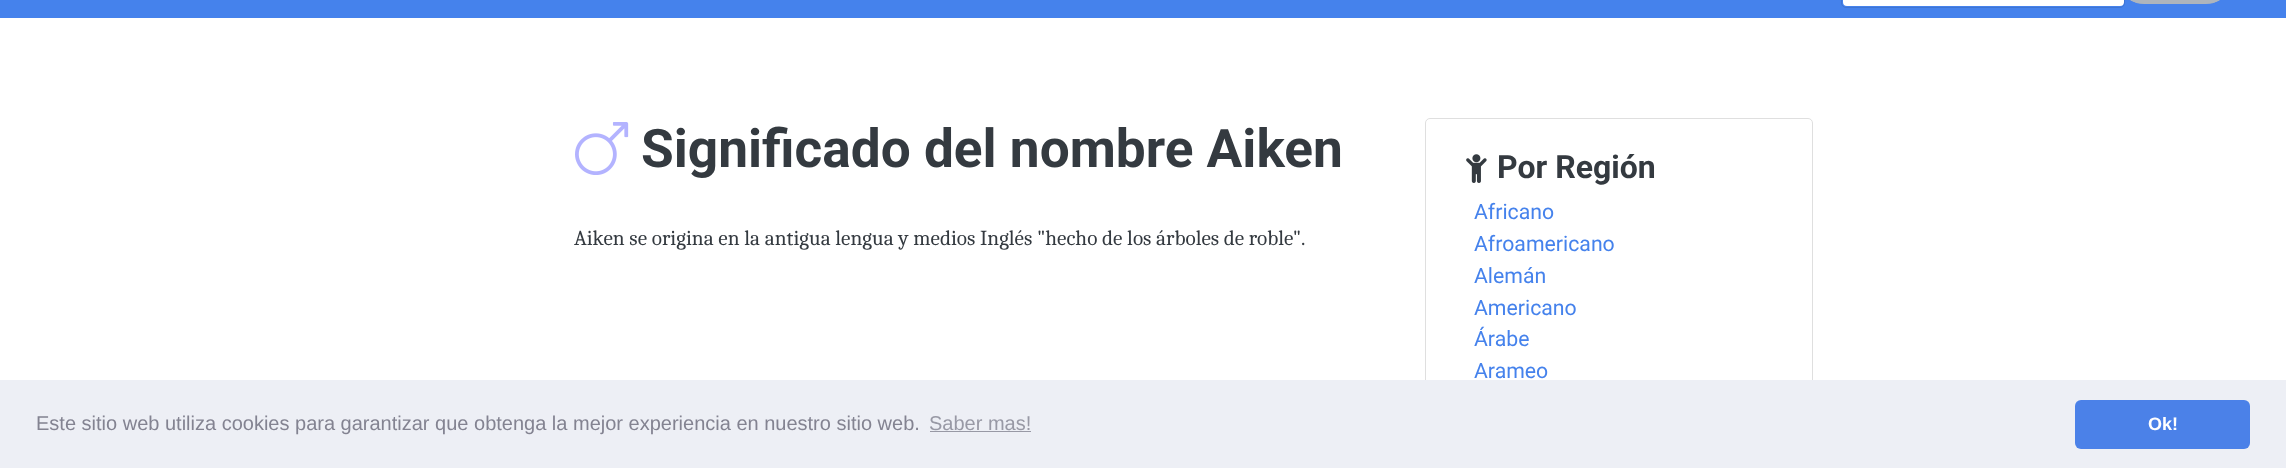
<svg xmlns="http://www.w3.org/2000/svg" width="2286" height="468">
<rect width="100%" height="100%" fill="#fff"/>
<rect width="2286" height="18" fill="#4582ec"/>
<rect x="1843" y="-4" width="281" height="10" rx="4" fill="#fff"/>
<rect x="1841.5" y="-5.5" width="283" height="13" rx="4.5" fill="none" stroke="#3e75d4"/>
<rect x="2125.5" y="-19.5" width="99" height="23" rx="18.5" fill="#adb5bd" stroke="#adb5bd"/>
<image x="575" y="122" width="54" height="53" href="media/1.png"/>
<text x="641" y="167" style="font-family:Roboto;font-size:53.2px;font-weight:bold;fill:#343a40">Significado del nombre Aiken</text>
<text x="574" y="245" style="font-family:Caladea;font-size:21.25px;fill:#343a40">Aiken se origina en la antigua lengua y medios Inglés "hecho de los árboles de roble".</text>
<rect x="1425.5" y="118.5" width="387" height="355" rx="4.5" fill="none" stroke="#dfdfdf"/>
<image x="1466" y="154" width="21" height="29" href="media/2.png"/>
<text x="1497" y="178" style="font-family:Roboto;font-size:32px;font-weight:bold;fill:#343a40">Por Región</text>
<text x="1474" y="219" style="font-family:Roboto;font-size:21.25px;fill:#4582ec">Africano</text>
<text x="1474" y="251" style="font-family:Roboto;font-size:21.25px;fill:#4582ec">Afroamericano</text>
<text x="1474" y="283" style="font-family:Roboto;font-size:21.25px;fill:#4582ec">Alemán</text>
<text x="1474" y="315" style="font-family:Roboto;font-size:21.25px;fill:#4582ec">Americano</text>
<text x="1474" y="346" style="font-family:Roboto;font-size:21.25px;fill:#4582ec">Árabe</text>
<text x="1474" y="378" style="font-family:Roboto;font-size:21.25px;fill:#4582ec">Arameo</text>
<rect y="380" width="2286" height="88" fill="#edeff5"/>
<text x="36" y="430" style="font-family:Liberation Sans;font-size:20px;fill:#838391">Este sitio web utiliza cookies para garantizar que obtenga la mejor experiencia en nuestro sitio web.</text>
<text x="929" y="430" style="font-family:Liberation Sans;font-size:20px;fill:#9899a5">Saber mas!</text>
<rect x="930" y="431" width="101" height="1" fill="#9899a5"/>
<rect x="2075" y="400" width="175" height="49" rx="6" fill="#4b81e8"/>
<text x="2148" y="430" style="font-family:Liberation Sans;font-size:18px;font-weight:bold;fill:#fff">Ok!</text>
</svg>
